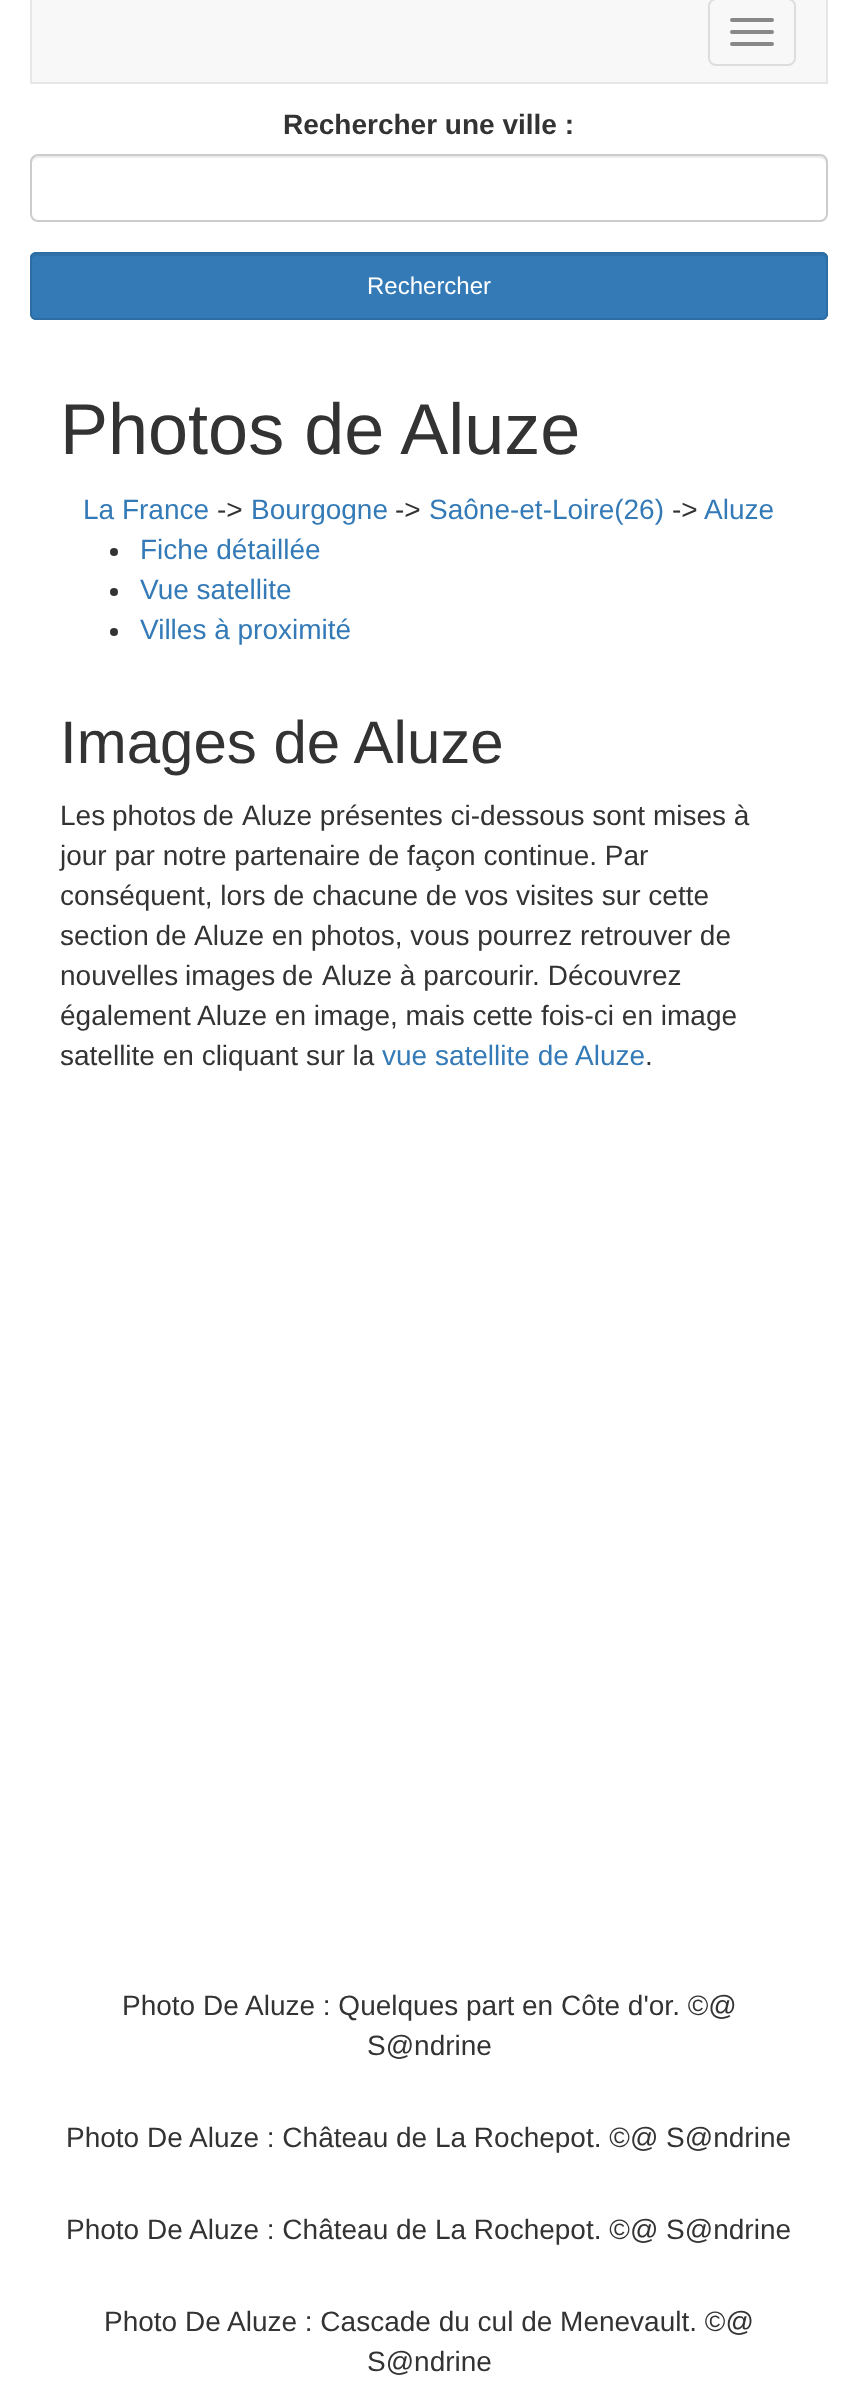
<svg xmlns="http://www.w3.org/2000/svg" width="857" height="2408">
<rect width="100%" height="100%" fill="#fff"/>
<rect x="31" y="-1" width="796" height="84" fill="#f8f8f8" stroke="#e7e7e7" stroke-width="2"/>
<rect x="709" y="-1" width="86" height="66" rx="7" fill="none" stroke="#ddd" stroke-width="2"/>
<rect x="730" y="18" width="44" height="4" rx="2" fill="#888"/>
<rect x="730" y="30" width="44" height="4" rx="2" fill="#888"/>
<rect x="730" y="42" width="44" height="4" rx="2" fill="#888"/>
<text x="283" y="134" style="font-family:Liberation Sans;font-size:28px;font-weight:bold;fill:#333">Rechercher une ville :</text>
<path d="M38 158h782c3 0 6 3 6 6v-2c0-3-3-6-6-6h-782c-3 0-6 3-6 6v2c0-3 3-6 6-6z" fill="#ececec"/>
<rect x="31" y="155" width="796" height="66" rx="7" fill="none" stroke="#ccc" stroke-width="2"/>
<rect x="30" y="252" width="798" height="68" rx="6" fill="#337ab7"/>
<path d="M36 256h786c2 0 4 2 4 4v-2c0-2-2-4-4-4h-786c-2 0-4 2-4 4v2c0-2 2-4 4-4z" fill="#2f71a9"/>
<rect x="31" y="253" width="796" height="66" rx="5" fill="none" stroke="#2e6da4" stroke-width="2"/>
<text x="367" y="294" style="font-family:Liberation Sans;font-size:24px;fill:#fff">Rechercher</text>
<text x="60" y="454" style="font-family:Liberation Sans;font-size:72px;fill:#333">Photos de Aluze</text>
<text x="83" y="519" style="font-family:Liberation Sans;font-size:28px;fill:#337ab7">La France</text>
<text x="217" y="519" style="font-family:Liberation Sans;font-size:28px;fill:#333">-&gt;</text>
<text x="251" y="519" style="font-family:Liberation Sans;font-size:28px;fill:#337ab7">Bourgogne</text>
<text x="395" y="519" style="font-family:Liberation Sans;font-size:28px;fill:#333">-&gt;</text>
<text x="429" y="519" style="font-family:Liberation Sans;font-size:28px;fill:#337ab7">Saône-et-Loire(26)</text>
<text x="672" y="519" style="font-family:Liberation Sans;font-size:28px;fill:#333">-&gt;</text>
<text x="704" y="519" style="font-family:Liberation Sans;font-size:28px;fill:#337ab7">Aluze</text>
<circle cx="114" cy="552" r="4" fill="#333"/>
<text x="140" y="559" style="font-family:Liberation Sans;font-size:28px;fill:#337ab7">Fiche détaillée</text>
<circle cx="114" cy="592" r="4" fill="#333"/>
<text x="140" y="599" style="font-family:Liberation Sans;font-size:28px;fill:#337ab7">Vue satellite</text>
<circle cx="114" cy="632" r="4" fill="#333"/>
<text x="140" y="639" style="font-family:Liberation Sans;font-size:28px;fill:#337ab7">Villes à proximité</text>
<text x="60" y="763" style="font-family:Liberation Sans;font-size:60px;fill:#333">Images de Aluze</text>
<text x="60" y="825" word-spacing="-1" style="font-family:Liberation Sans;font-size:28px;fill:#333">Les photos de</text>
<text x="242" y="825" style="font-family:Liberation Sans;font-size:28px;fill:#333">Aluze présentes ci-dessous sont mises à</text>
<text x="60" y="865" style="font-family:Liberation Sans;font-size:28px;fill:#333">jour par notre partenaire de façon continue. Par</text>
<text x="60" y="905" style="font-family:Liberation Sans;font-size:28px;fill:#333">conséquent, lors de chacune de vos visites sur cette</text>
<text x="60" y="945" word-spacing="-1" style="font-family:Liberation Sans;font-size:28px;fill:#333">section de</text>
<text x="194" y="945" style="font-family:Liberation Sans;font-size:28px;fill:#333">Aluze en photos, vous pourrez retrouver de</text>
<text x="60" y="985" word-spacing="-1" style="font-family:Liberation Sans;font-size:28px;fill:#333">nouvelles images de</text>
<text x="322" y="985" style="font-family:Liberation Sans;font-size:28px;fill:#333">Aluze à parcourir. Découvrez</text>
<text x="60" y="1025" style="font-family:Liberation Sans;font-size:28px;fill:#333">également</text>
<text x="197" y="1025" style="font-family:Liberation Sans;font-size:28px;fill:#333">Aluze en image, mais cette fois-ci en image</text>
<text x="60" y="1065" style="font-family:Liberation Sans;font-size:28px;fill:#333">satellite en cliquant sur la</text>
<text x="382" y="1065" style="font-family:Liberation Sans;font-size:28px;fill:#337ab7">vue satellite de Aluze</text>
<text x="645" y="1065" style="font-family:Liberation Sans;font-size:28px;fill:#333">.</text>
<text x="122" y="2015" style="font-family:Liberation Sans;font-size:28px;fill:#333">Photo De Aluze : Quelques part en Côte d'or. ©@</text>
<text x="367" y="2055" style="font-family:Liberation Sans;font-size:28px;fill:#333">S@ndrine</text>
<text x="66" y="2147" style="font-family:Liberation Sans;font-size:28px;fill:#333">Photo De Aluze : Château de La Rochepot. ©@ S@ndrine</text>
<text x="66" y="2239" style="font-family:Liberation Sans;font-size:28px;fill:#333">Photo De Aluze : Château de La Rochepot. ©@ S@ndrine</text>
<text x="104" y="2331" style="font-family:Liberation Sans;font-size:28px;fill:#333">Photo De Aluze : Cascade du cul de Menevault. ©@</text>
<text x="367" y="2371" style="font-family:Liberation Sans;font-size:28px;fill:#333">S@ndrine</text>
</svg>
